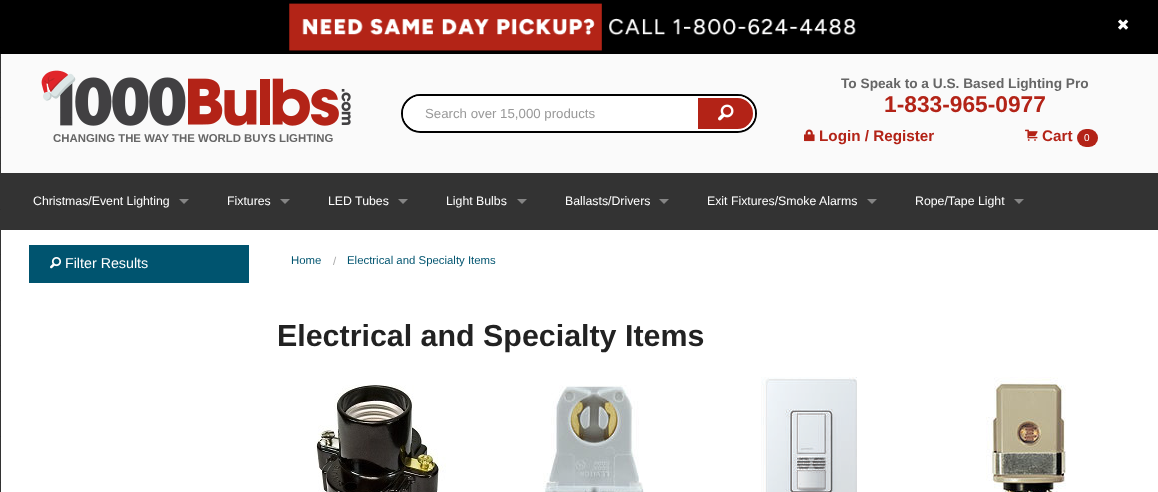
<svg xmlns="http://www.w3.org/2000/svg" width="1158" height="492">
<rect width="100%" height="100%" fill="#fff"/>
<rect width="1158" height="54" fill="#000"/>
<image x="289" y="3" width="567" height="48" href="media/1.png"/>
<image x="1118" y="19" width="11" height="11" href="media/2.png"/>
<rect y="54" width="1" height="438" fill="#333"/>
<rect y="72" width="1" height="1" fill="#2e2e2e"/>
<rect y="117" width="1" height="1" fill="#2e2e2e"/>
<rect y="163" width="1" height="1" fill="#2e2e2e"/>
<rect y="209" width="1" height="1" fill="#2e2e2e"/>
<rect y="254" width="1" height="1" fill="#2e2e2e"/>
<rect y="300" width="1" height="1" fill="#2e2e2e"/>
<rect y="345" width="1" height="1" fill="#2e2e2e"/>
<rect y="391" width="1" height="1" fill="#2e2e2e"/>
<rect y="436" width="1" height="1" fill="#2e2e2e"/>
<rect y="482" width="1" height="1" fill="#2e2e2e"/>
<rect x="1" y="54" width="1157" height="119" fill="#fafafa"/>
<rect x="402" y="95" width="354" height="37" rx="18.5" fill="none" stroke="#000" stroke-width="2"/>
<path d="M420.5 97h274.5v33h-274.5c-9 0-16.5-7.5-16.5-16.5c0-9 7.5-16.5 16.5-16.5z" fill="#fff" stroke="#fff" stroke-width="2"/>
<text x="425" y="118" style="font-family:Liberation Sans;font-size:13.25px;fill:#999">Search over 15,000 products</text>
<path d="M697 97h40.5c9 0 16.5 7.5 16.5 16.5c0 9-7.5 16.5-16.5 16.5h-40.5z" fill="#b32317" stroke="#fff" stroke-width="2"/>
<image x="718" y="104" width="16" height="17" href="media/3.png"/>
<text x="841" y="88" style="font-family:Liberation Sans;font-size:13.7px;font-weight:bold;fill:#666">To Speak to a U.S. Based Lighting Pro</text>
<text x="884" y="112" style="font-family:Liberation Sans;font-size:22.75px;font-weight:bold;fill:#b32317">1-833-965-0977</text>
<image x="804" y="129" width="11" height="13" href="media/4.png"/>
<text x="819" y="141" style="font-family:Liberation Sans;font-size:15.25px;font-weight:bold;fill:#b32317">Login / Register</text>
<image x="1025" y="129" width="13" height="12" href="media/5.png"/>
<text x="1042" y="141" style="font-family:Liberation Sans;font-size:15.25px;font-weight:bold;fill:#b32317">Cart</text>
<rect x="1077" y="129" width="21" height="18" rx="9" fill="#b32317"/>
<text x="1084" y="141" style="font-family:Liberation Sans;font-size:10px;fill:#fff">0</text>
<image x="41" y="70" width="310" height="56" href="media/6.png"/>
<text x="53" y="142" style="font-family:Liberation Sans;font-size:11.4px;font-weight:bold;fill:#666">CHANGING THE WAY THE WORLD BUYS LIGHTING</text>
<rect x="1" y="173" width="1157" height="57" fill="#333"/>
<text x="33" y="205" style="font-family:Liberation Sans;font-size:12.3px;fill:#fff">Christmas/Event Lighting</text>
<path d="M179 199h10l-5 5z" fill="#858585"/>
<text x="227" y="205" style="font-family:Liberation Sans;font-size:12.3px;fill:#fff">Fixtures</text>
<path d="M280 199h10l-5 5z" fill="#858585"/>
<text x="328" y="205" style="font-family:Liberation Sans;font-size:12.3px;fill:#fff">LED Tubes</text>
<path d="M398 199h10l-5 5z" fill="#858585"/>
<text x="446" y="205" style="font-family:Liberation Sans;font-size:12.3px;fill:#fff">Light Bulbs</text>
<path d="M517 199h10l-5 5z" fill="#858585"/>
<text x="565" y="205" style="font-family:Liberation Sans;font-size:12.3px;fill:#fff">Ballasts/Drivers</text>
<path d="M659 199h10l-5 5z" fill="#858585"/>
<text x="707" y="205" style="font-family:Liberation Sans;font-size:12.3px;fill:#fff">Exit Fixtures/Smoke Alarms</text>
<path d="M867 199h10l-5 5z" fill="#858585"/>
<text x="915" y="205" style="font-family:Liberation Sans;font-size:12.3px;fill:#fff">Rope/Tape Light</text>
<path d="M1014 199h10l-5 5z" fill="#858585"/>
<rect x="29" y="245" width="220" height="38" fill="#00546f"/>
<image x="50" y="257" width="12" height="12" href="media/7.png"/>
<text x="65" y="268" style="font-family:Liberation Sans;font-size:14.25px;fill:#fff">Filter Results</text>
<text x="291" y="264" style="font-family:Liberation Sans;font-size:11.4px;fill:#00546f">Home</text>
<text x="333" y="265" style="font-family:Liberation Sans;font-size:11.4px;fill:#aaa">/</text>
<text x="347" y="264" style="font-family:Liberation Sans;font-size:11.4px;fill:#00546f">Electrical and Specialty Items</text>
<text x="277" y="346" style="font-family:Liberation Sans;font-size:30.4px;font-weight:bold;fill:#222">Electrical and Specialty Items</text>
<image x="314" y="385" width="132" height="107" href="media/8.png"/>
<image x="543" y="385" width="101" height="107" href="media/9.png"/>
<image x="761" y="377" width="96" height="115" href="media/10.png"/>
<image x="986" y="377" width="80" height="115" href="media/11.png"/>
</svg>
